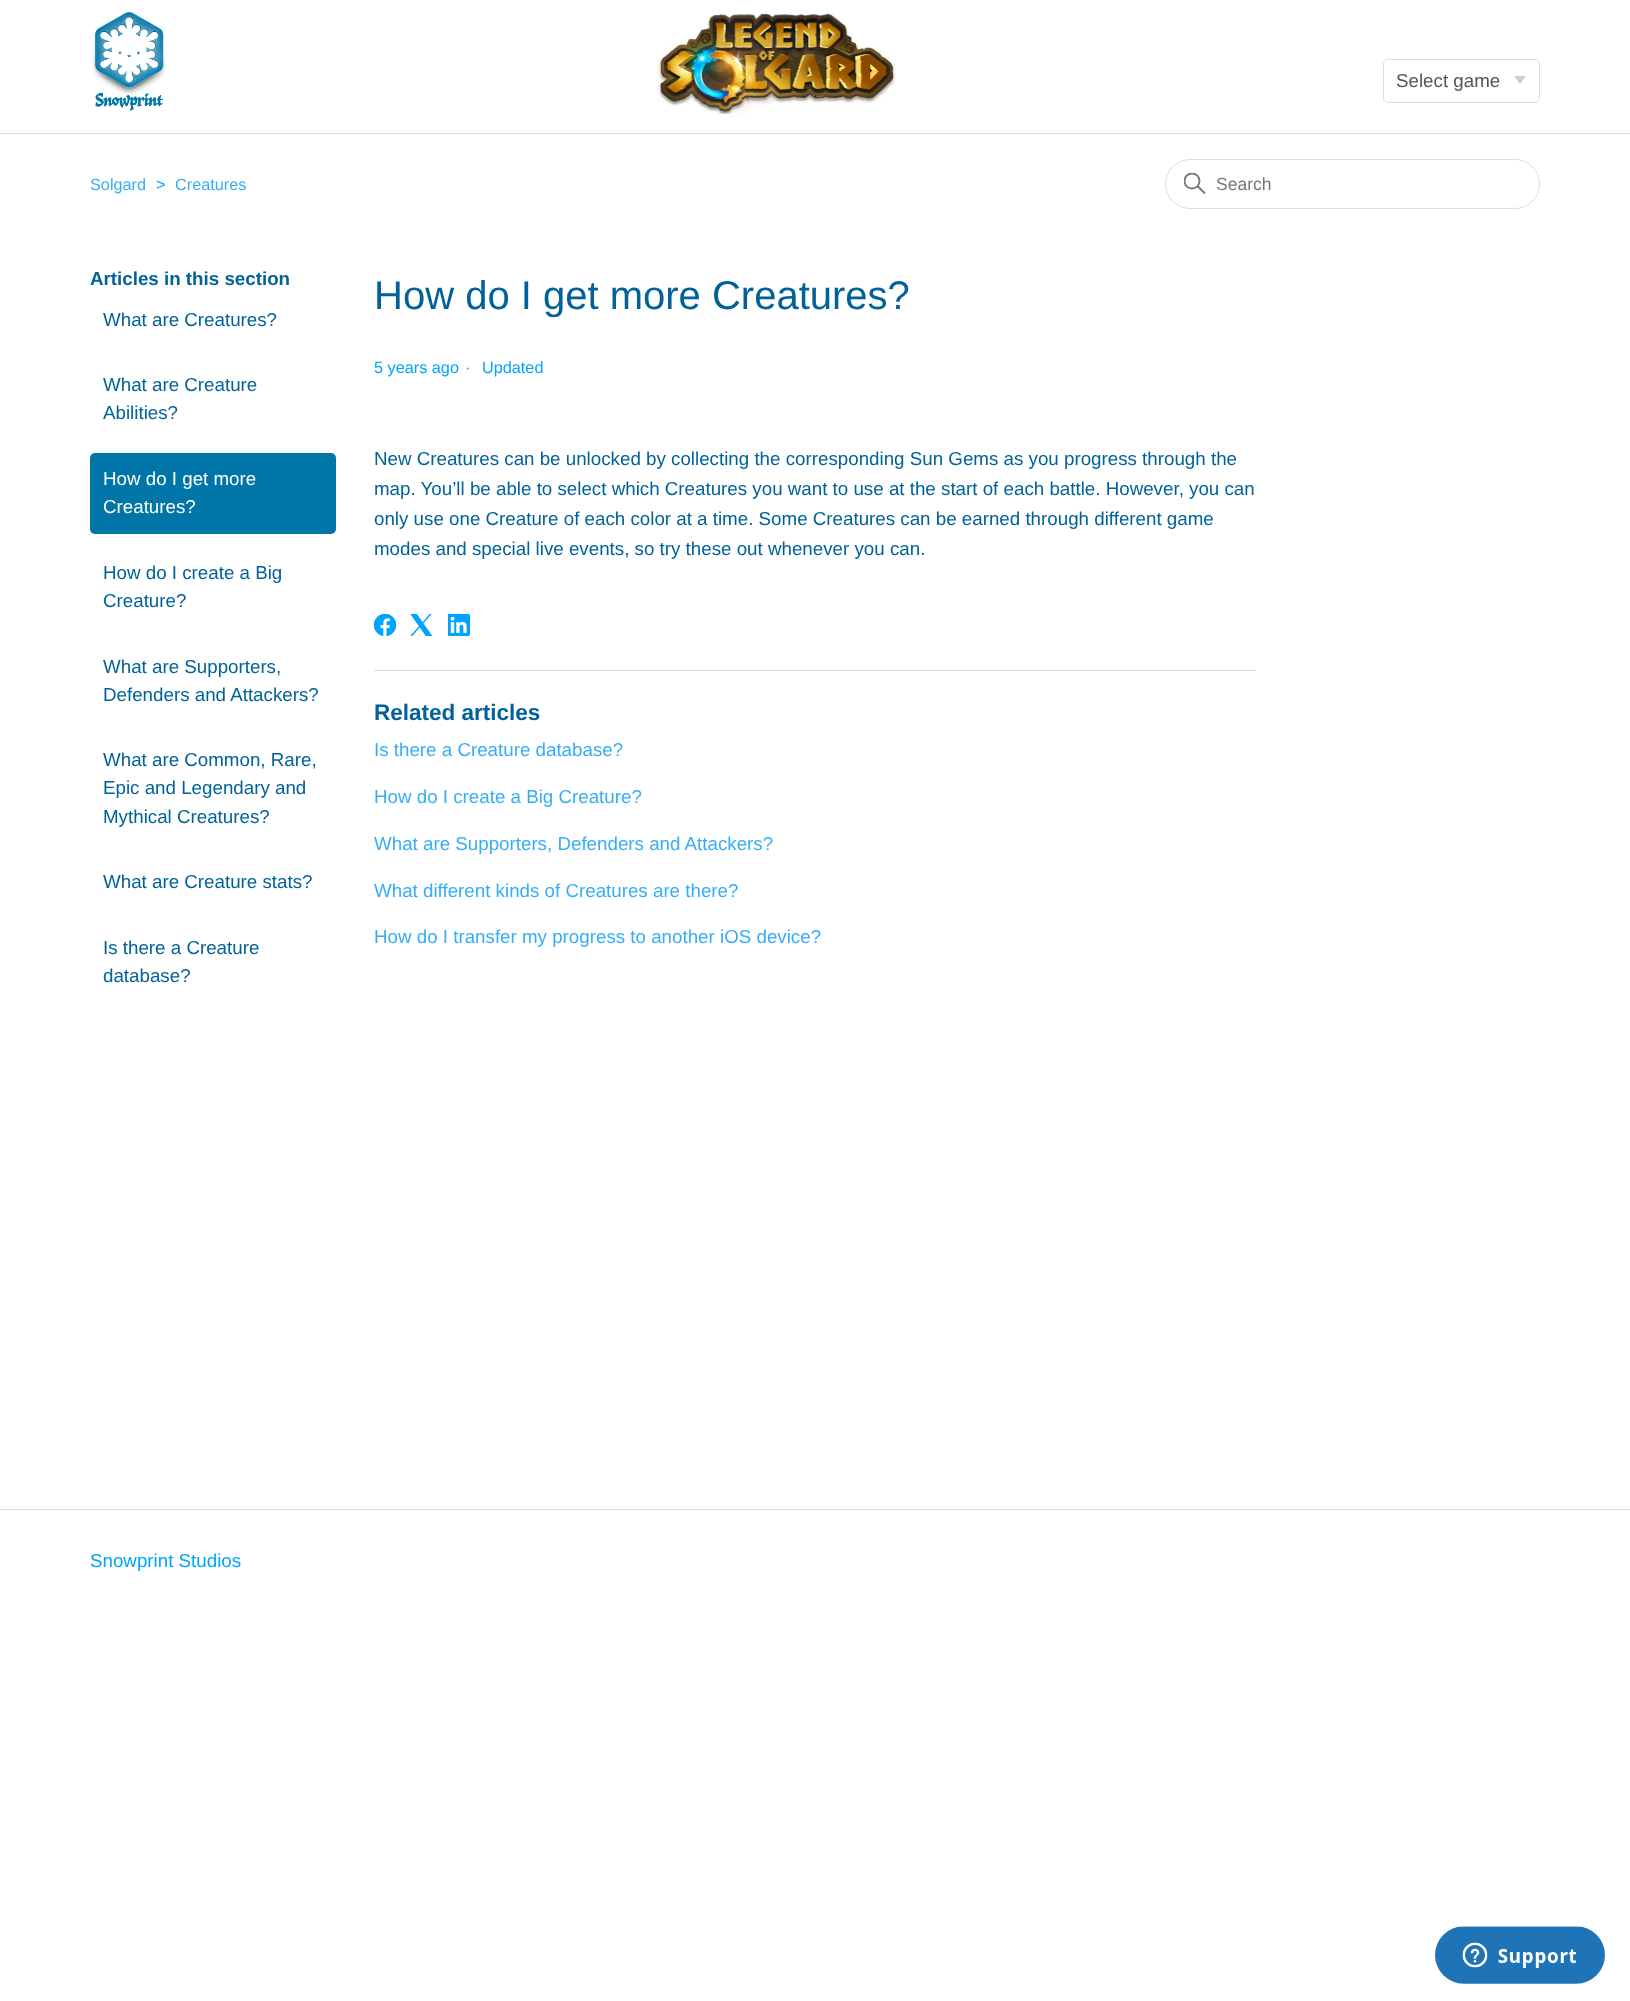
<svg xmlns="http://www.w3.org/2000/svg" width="1630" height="2001">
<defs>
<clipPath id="clip1"><rect x="1184" y="173" width="22" height="22"/></clipPath>
</defs>
<rect width="100%" height="100%" fill="#fff"/>
<image x="92" y="12" width="74" height="99" href="media/1.png"/>
<image x="656" y="13" width="239" height="101" href="media/2.png"/>
<path d="M1514 76h12l-6 8z" fill="#ccc"/>
<rect x="1383.5" y="59.5" width="156" height="43" rx="4.5" fill="none" stroke="#ddd"/>
<text x="1396" y="87" style="font-family:Liberation Sans;font-size:18.75px;fill:#555">Select game</text>
<rect y="133" width="1630" height="1" fill="#ddd"/>
<text x="90" y="190" style="font-family:Liberation Sans;font-size:16.25px;fill:#36adf6">Solgard</text>
<text x="156" y="190" style="font-family:Liberation Sans;font-size:16.25px;fill:#00a4fe">&gt;</text>
<text x="175" y="190" style="font-family:Liberation Sans;font-size:16.25px;fill:#36adf6">Creatures</text>
<rect x="1165.5" y="159.5" width="374" height="49" rx="24.5" fill="none" stroke="#ddd"/>
<g clip-path="url(#clip1)">
<circle cx="1192" cy="181" r="7.5" fill="none" stroke="#777" stroke-width="1.9"/>
</g>
<path d="M1204.5 193l-6.5-6.5" fill="none" stroke="#777" stroke-width="1.9" stroke-linecap="round"/>
<text x="1216" y="190" style="font-family:Liberation Sans;font-size:17.5px;fill:#757575">Search</text>
<text x="90" y="285" style="font-family:Liberation Sans;font-size:18.75px;font-weight:bold;fill:#006298">Articles in this section</text>
<text x="103" y="326" style="font-family:Liberation Sans;font-size:18.75px;fill:#006298">What are Creatures?</text>
<text x="103" y="391" style="font-family:Liberation Sans;font-size:18.75px;fill:#006298">What are Creature</text>
<text x="103" y="419" style="font-family:Liberation Sans;font-size:18.75px;fill:#006298">Abilities?</text>
<rect x="90" y="453" width="246" height="81" rx="5" fill="#0076a8"/>
<text x="103" y="485" style="font-family:Liberation Sans;font-size:18.75px;fill:#fff">How do I get more</text>
<text x="103" y="513" style="font-family:Liberation Sans;font-size:18.75px;fill:#fff">Creatures?</text>
<text x="103" y="579" style="font-family:Liberation Sans;font-size:18.75px;fill:#006298">How do I create a Big</text>
<text x="103" y="607" style="font-family:Liberation Sans;font-size:18.75px;fill:#006298">Creature?</text>
<text x="103" y="673" style="font-family:Liberation Sans;font-size:18.75px;fill:#006298">What are Supporters,</text>
<text x="103" y="701" style="font-family:Liberation Sans;font-size:18.75px;fill:#006298">Defenders and Attackers?</text>
<text x="103" y="766" style="font-family:Liberation Sans;font-size:18.75px;fill:#006298">What are Common, Rare,</text>
<text x="103" y="794" style="font-family:Liberation Sans;font-size:18.75px;fill:#006298">Epic and Legendary and</text>
<text x="103" y="823" style="font-family:Liberation Sans;font-size:18.75px;fill:#006298">Mythical Creatures?</text>
<text x="103" y="888" style="font-family:Liberation Sans;font-size:18.75px;fill:#006298">What are Creature stats?</text>
<text x="103" y="954" style="font-family:Liberation Sans;font-size:18.75px;fill:#006298">Is there a Creature</text>
<text x="103" y="982" style="font-family:Liberation Sans;font-size:18.75px;fill:#006298">database?</text>
<text x="374" y="309" style="font-family:Liberation Sans;font-size:40px;fill:#006298">How do I get more Creatures?</text>
<text x="374" y="373" style="font-family:Liberation Sans;font-size:16.25px;fill:#00a4fe">5 years ago</text>
<text x="465" y="373" style="font-family:Liberation Sans;font-size:16.25px;fill:#00a4fe">·</text>
<text x="482" y="373" style="font-family:Liberation Sans;font-size:16.25px;fill:#00a4fe">Updated</text>
<text x="374" y="465" style="font-family:Liberation Sans;font-size:18.75px;fill:#006298">New Creatures can be unlocked by collecting the corresponding Sun Gems as you progress through the</text>
<text x="374" y="495" style="font-family:Liberation Sans;font-size:18.75px;fill:#006298">map. You’ll be able to select which Creatures you want to use at the start of each battle. However, you can</text>
<text x="374" y="525" style="font-family:Liberation Sans;font-size:18.75px;fill:#006298">only use one Creature of each color at a time. Some Creatures can be earned through different game</text>
<text x="374" y="555" style="font-family:Liberation Sans;font-size:18.75px;fill:#006298">modes and special live events, so try these out whenever you can.</text>
<image x="374" y="614" width="22" height="22" href="media/3.png"/>
<image x="410" y="614" width="23" height="22" href="media/4.png"/>
<image x="448" y="614" width="22" height="22" href="media/5.png"/>
<rect x="374" y="670" width="882" height="1" fill="#ddd"/>
<text x="374" y="720" style="font-family:Liberation Sans;font-size:22.5px;font-weight:bold;fill:#006298">Related articles</text>
<text x="374" y="756" style="font-family:Liberation Sans;font-size:18.75px;fill:#36adf6">Is there a Creature database?</text>
<text x="374" y="803" style="font-family:Liberation Sans;font-size:18.75px;fill:#36adf6">How do I create a Big Creature?</text>
<text x="374" y="850" style="font-family:Liberation Sans;font-size:18.75px;fill:#36adf6">What are Supporters, Defenders and Attackers?</text>
<text x="374" y="897" style="font-family:Liberation Sans;font-size:18.75px;fill:#36adf6">What different kinds of Creatures are there?</text>
<text x="374" y="943" style="font-family:Liberation Sans;font-size:18.75px;fill:#36adf6">How do I transfer my progress to another iOS device?</text>
<rect y="1509" width="1630" height="1" fill="#ddd"/>
<text x="90" y="1567" style="font-family:Liberation Sans;font-size:18.75px;fill:#00a4fe">Snowprint Studios</text>
<image x="1435" y="1926" width="170" height="58" href="media/6.png"/>
</svg>
